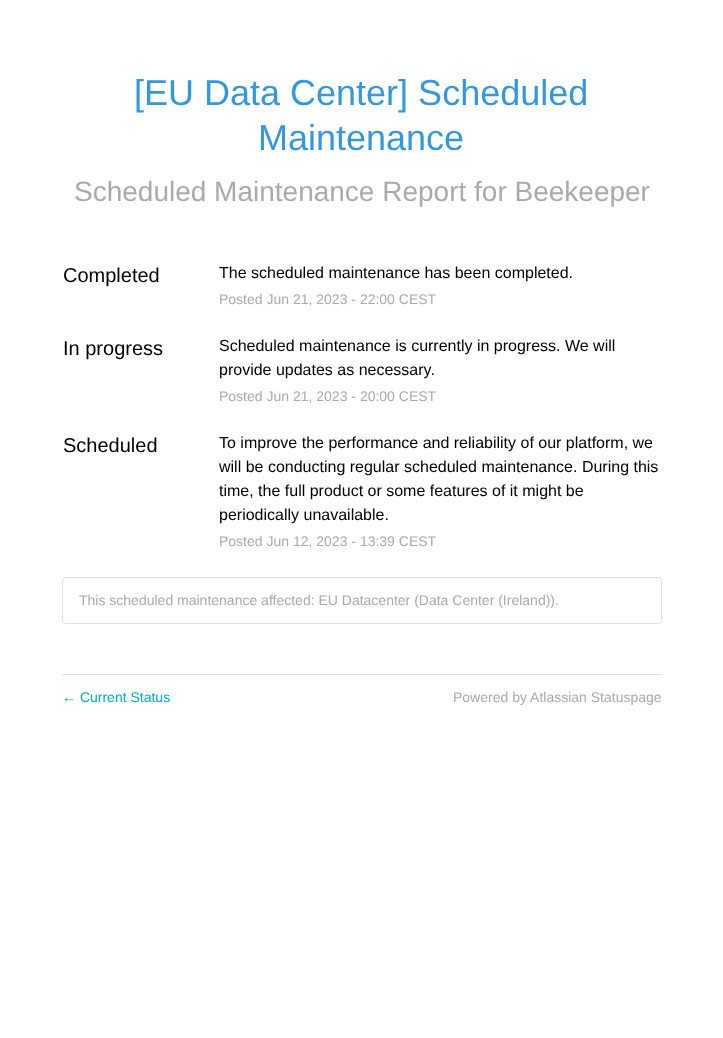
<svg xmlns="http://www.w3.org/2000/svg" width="723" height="1038">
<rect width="100%" height="100%" fill="#fff"/>
<text x="134" y="105" style="font-family:Liberation Sans;font-size:36px;fill:#3498db">[EU Data Center] Scheduled</text>
<text x="258" y="150" style="font-family:Liberation Sans;font-size:36px;fill:#3498db">Maintenance</text>
<text x="74" y="201" style="font-family:Liberation Sans;font-size:28px;fill:#aaa">Scheduled Maintenance Report for Beekeeper</text>
<text x="63" y="282" style="font-family:Liberation Sans;font-size:20px;fill:#000">Completed</text>
<text x="219" y="278" style="font-family:Liberation Sans;font-size:16px;fill:#000">The scheduled maintenance has been completed.</text>
<text x="219" y="304" style="font-family:Liberation Sans;font-size:14px;fill:#aaa">Posted Jun 21, 2023 - 22:00 CEST</text>
<text x="63" y="355" style="font-family:Liberation Sans;font-size:20px;fill:#000">In progress</text>
<text x="219" y="351" style="font-family:Liberation Sans;font-size:16px;fill:#000">Scheduled maintenance is currently in progress. We will</text>
<text x="219" y="375" style="font-family:Liberation Sans;font-size:16px;fill:#000">provide updates as necessary.</text>
<text x="219" y="401" style="font-family:Liberation Sans;font-size:14px;fill:#aaa">Posted Jun 21, 2023 - 20:00 CEST</text>
<text x="63" y="452" style="font-family:Liberation Sans;font-size:20px;fill:#000">Scheduled</text>
<text x="219" y="448" style="font-family:Liberation Sans;font-size:16px;fill:#000">To improve the performance and reliability of our platform, we</text>
<text x="219" y="472" style="font-family:Liberation Sans;font-size:16px;fill:#000">will be conducting regular scheduled maintenance. During this</text>
<text x="219" y="496" style="font-family:Liberation Sans;font-size:16px;fill:#000">time, the full product or some features of it might be</text>
<text x="219" y="520" style="font-family:Liberation Sans;font-size:16px;fill:#000">periodically unavailable.</text>
<text x="219" y="546" style="font-family:Liberation Sans;font-size:14px;fill:#aaa">Posted Jun 12, 2023 - 13:39 CEST</text>
<rect x="62.5" y="577.5" width="599" height="46" rx="3.5" fill="none" stroke="#e0e0e0"/>
<text x="79" y="605" style="font-family:Liberation Sans;font-size:14px;fill:#aaa">This scheduled maintenance affected: EU Datacenter (Data Center (Ireland)).</text>
<rect x="62" y="674" width="600" height="1" fill="#e0e0e0"/>
<text x="62" y="702" style="font-family:Liberation Sans;font-size:14px;fill:#00abc2">← Current Status</text>
<text x="453" y="702" style="font-family:Liberation Sans;font-size:14px;fill:#aaa">Powered by Atlassian Statuspage</text>
</svg>
